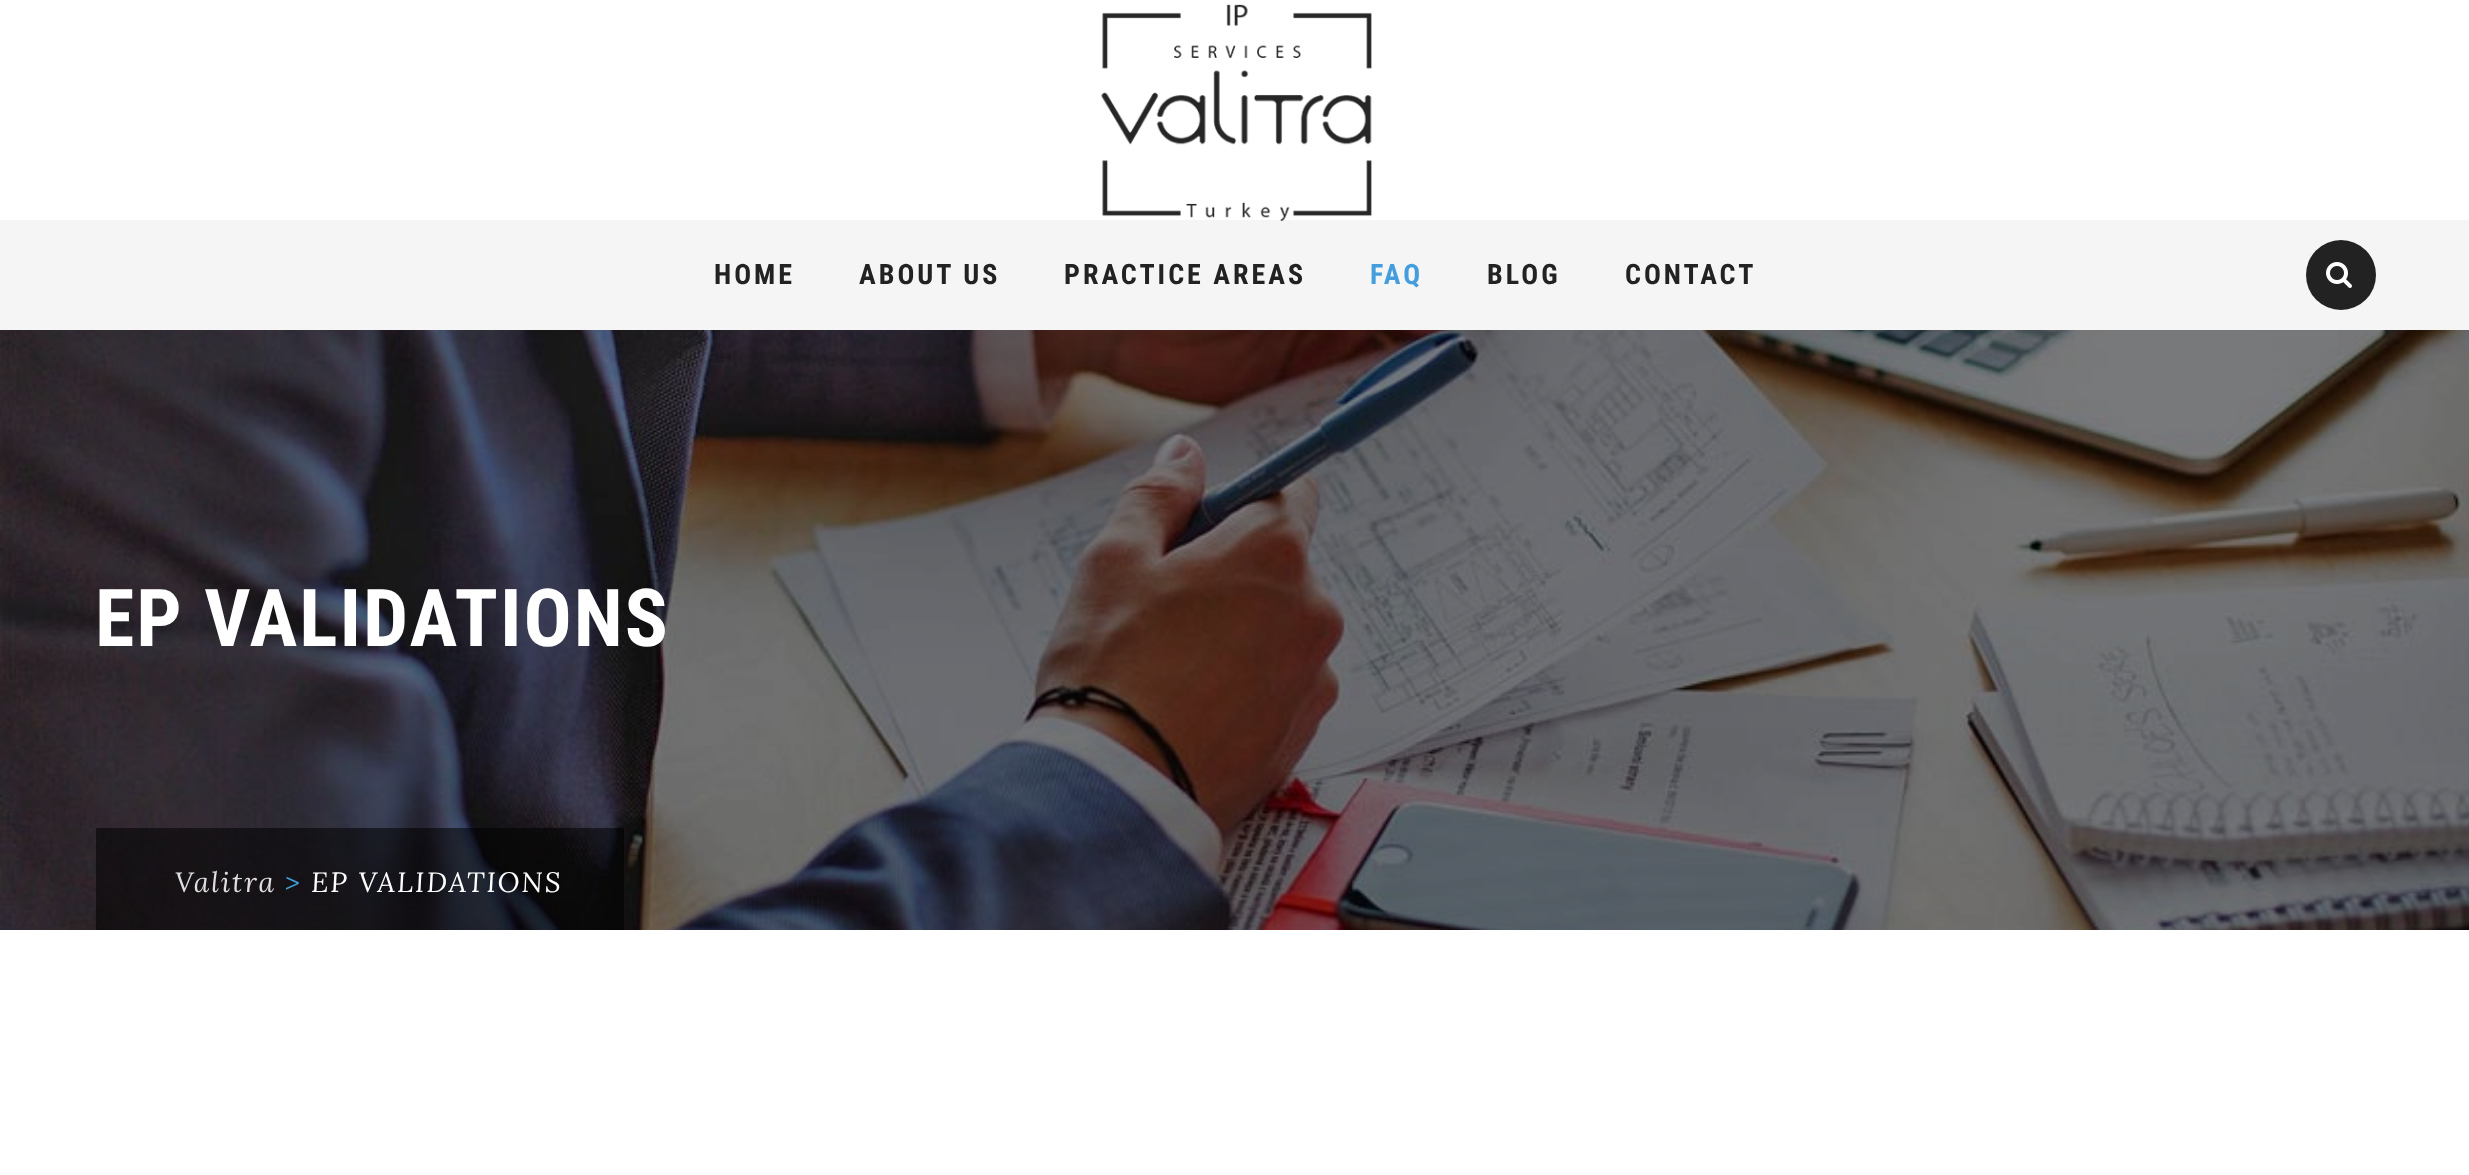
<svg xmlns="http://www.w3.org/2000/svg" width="2469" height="1175">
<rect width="100%" height="100%" fill="#fff"/>
<rect y="220" width="2469" height="110" fill="#f5f5f5"/>
<image x="1101" y="4" width="271" height="218" href="media/1.png"/>
<text x="714" y="284" style="font-family:Roboto Condensed;font-size:28px;font-weight:bold;letter-spacing:3px;fill:#222">HOME</text>
<text x="859" y="284" style="font-family:Roboto Condensed;font-size:28px;font-weight:bold;letter-spacing:3px;fill:#222">ABOUT US</text>
<text x="1064" y="284" style="font-family:Roboto Condensed;font-size:28px;font-weight:bold;letter-spacing:3px;fill:#222">PRACTICE AREAS</text>
<text x="1370" y="284" style="font-family:Roboto Condensed;font-size:28px;font-weight:bold;letter-spacing:3px;fill:#449edd">FAQ</text>
<text x="1487" y="284" style="font-family:Roboto Condensed;font-size:28px;font-weight:bold;letter-spacing:3px;fill:#222">BLOG</text>
<text x="1625" y="284" style="font-family:Roboto Condensed;font-size:28px;font-weight:bold;letter-spacing:3px;fill:#222">CONTACT</text>
<circle cx="2341" cy="275" r="35" fill="#222"/>
<image x="2326" y="262" width="26" height="26" href="media/2.png"/>
<image x="0" y="330" width="2469" height="600" href="media/3.png"/>
<text x="95" y="646" style="font-family:Roboto Condensed;font-size:80px;font-weight:bold;letter-spacing:2px;fill:#fff">EP VALIDATIONS</text>
<rect x="96" y="828" width="528" height="102" fill="#0000008a"/>
<text x="175" y="892" style="font-family:Lora;font-size:28px;font-style:italic;letter-spacing:2px;fill:#dedede">Valitra</text>
<text x="285" y="892" style="font-family:Lora;font-size:28px;font-style:italic;letter-spacing:2px;fill:#449edd">&gt;</text>
<text x="311" y="892" style="font-family:Lora;font-size:28px;font-style:italic;letter-spacing:2px;fill:#fff">EP VALIDATIONS</text>
</svg>
